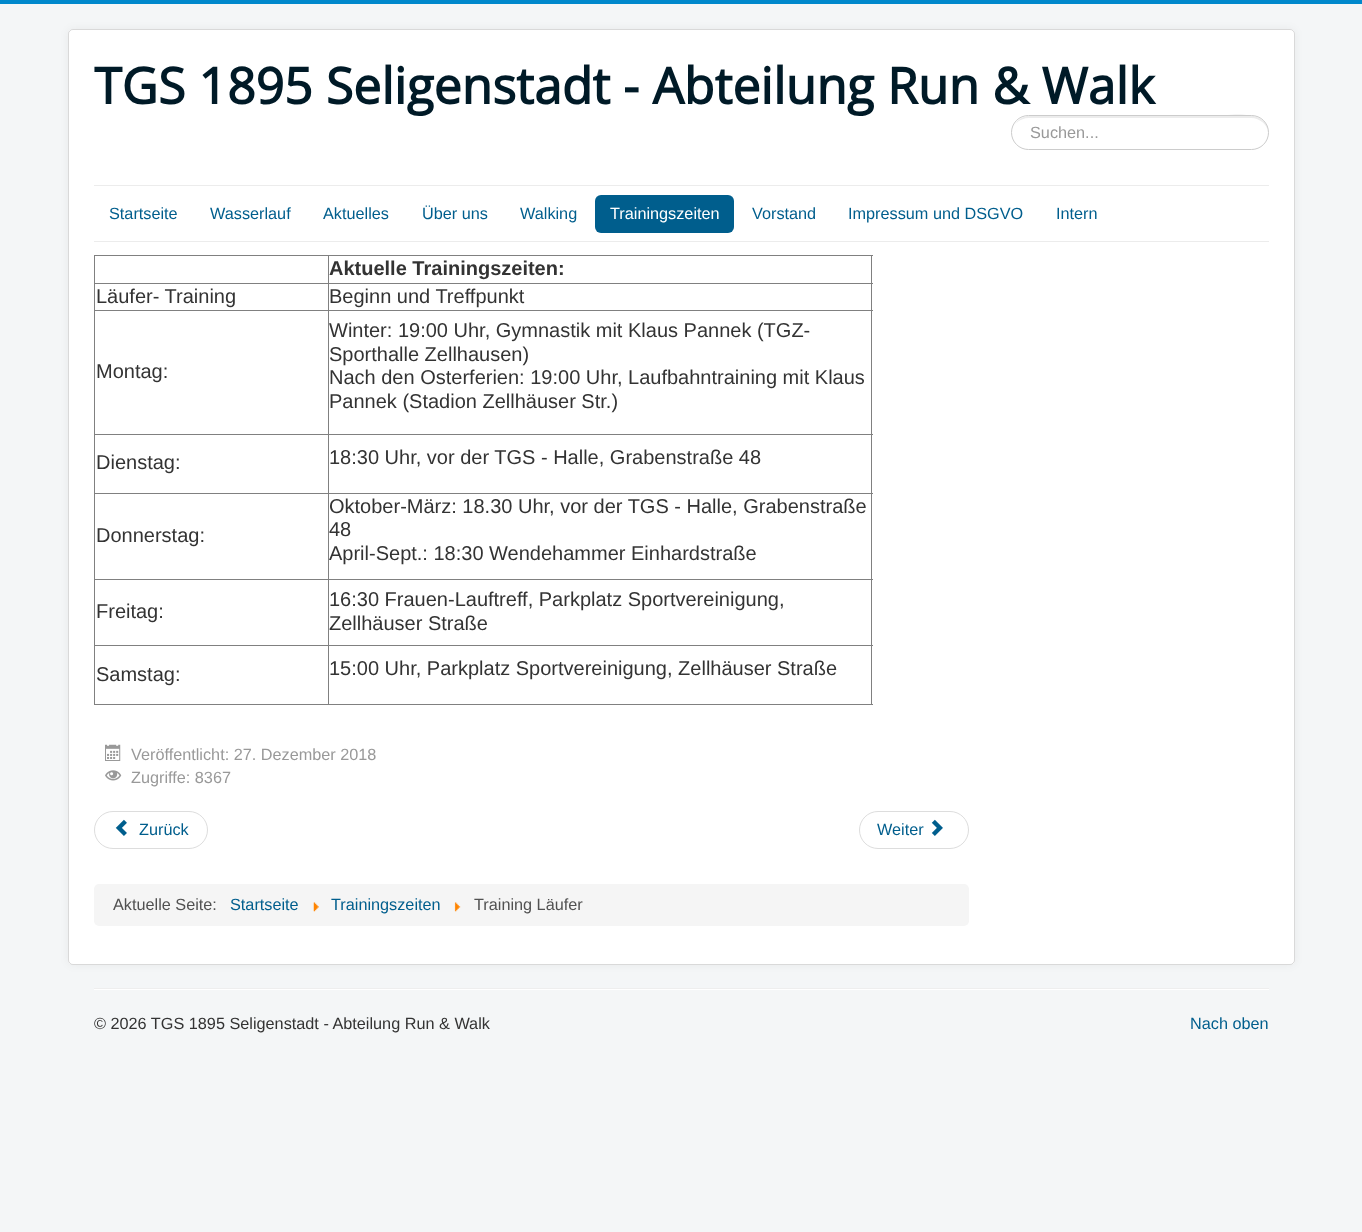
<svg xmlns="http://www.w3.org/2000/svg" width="1362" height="1232">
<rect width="100%" height="100%" fill="#f4f6f7"/>
<rect width="1362" height="4" fill="#08c"/>
<rect x="68" y="29" width="1227" height="936" rx="5" fill="#0000000d" filter="blur(4px)"/>
<rect x="68" y="29" width="1227" height="936" rx="5" fill="#fff"/>
<rect x="68.5" y="29.5" width="1226" height="935" rx="4.5" fill="none" stroke="#00000026"/>
<text x="94" y="104" style="font-family:Open Sans;font-size:50px;font-weight:bold;fill:#001a27">TGS 1895 Seligenstadt - Abteilung Run &amp; Walk</text>
<path d="M1029 118h222c9 0 17 7 17 15c1-26-43-17-54-17h-184c-7 0-13 4-16 10c3-5 9-8 15-8z" fill="#ececec"/>
<rect x="1011.5" y="115.5" width="257" height="34" rx="17" fill="none" stroke="#ccc"/>
<text x="1030" y="138" style="font-family:Liberation Sans;font-size:16.25px;fill:#999">Suchen...</text>
<rect x="94" y="185" width="1175" height="1" fill="#ececec"/>
<rect x="94" y="241" width="1175" height="1" fill="#ececec"/>
<text x="109" y="219" style="font-family:Liberation Sans;font-size:16.25px;fill:#005e8d">Startseite</text>
<text x="210" y="219" style="font-family:Liberation Sans;font-size:16.25px;fill:#005e8d">Wasserlauf</text>
<text x="323" y="219" style="font-family:Liberation Sans;font-size:16.25px;fill:#005e8d">Aktuelles</text>
<text x="422" y="219" style="font-family:Liberation Sans;font-size:16.25px;fill:#005e8d">Über uns</text>
<text x="520" y="219" style="font-family:Liberation Sans;font-size:16.25px;fill:#005e8d">Walking</text>
<rect x="595" y="195" width="139" height="38" rx="6" fill="#005e8d"/>
<text x="610" y="219" style="font-family:Liberation Sans;font-size:16.25px;fill:#fff">Trainingszeiten</text>
<text x="752" y="219" style="font-family:Liberation Sans;font-size:16.25px;fill:#005e8d">Vorstand</text>
<text x="848" y="219" style="font-family:Liberation Sans;font-size:16.25px;fill:#005e8d">Impressum und DSGVO</text>
<text x="1056" y="219" style="font-family:Liberation Sans;font-size:16.25px;fill:#005e8d">Intern</text>
<rect x="94" y="255" width="779" height="1" fill="#808080"/>
<rect x="871" y="255" width="1" height="450" fill="#808080"/>
<rect x="94" y="704" width="779" height="1" fill="#808080"/>
<rect x="94" y="255" width="1" height="450" fill="#808080"/>
<rect x="328" y="283" width="545" height="1" fill="#808080"/>
<rect x="328" y="310" width="545" height="1" fill="#808080"/>
<rect x="328" y="434" width="545" height="1" fill="#808080"/>
<rect x="328" y="493" width="545" height="1" fill="#808080"/>
<rect x="328" y="579" width="545" height="1" fill="#808080"/>
<rect x="328" y="645" width="545" height="1" fill="#808080"/>
<rect x="328" y="645" width="1" height="60" fill="#808080"/>
<rect x="94" y="645" width="235" height="1" fill="#808080"/>
<rect x="328" y="579" width="1" height="67" fill="#808080"/>
<rect x="94" y="579" width="235" height="1" fill="#808080"/>
<rect x="328" y="493" width="1" height="87" fill="#808080"/>
<rect x="94" y="493" width="235" height="1" fill="#808080"/>
<rect x="328" y="434" width="1" height="60" fill="#808080"/>
<rect x="94" y="434" width="235" height="1" fill="#808080"/>
<rect x="328" y="310" width="1" height="125" fill="#808080"/>
<rect x="94" y="310" width="235" height="1" fill="#808080"/>
<rect x="328" y="283" width="1" height="28" fill="#808080"/>
<rect x="94" y="283" width="235" height="1" fill="#808080"/>
<rect x="328" y="255" width="1" height="29" fill="#808080"/>
<text x="329" y="275" style="font-family:Liberation Sans;font-size:20px;font-weight:bold;fill:#333">Aktuelle Trainingszeiten:</text>
<text x="96" y="303" style="font-family:Liberation Sans;font-size:20px;fill:#333">Läufer- Training</text>
<text x="329" y="303" style="font-family:Liberation Sans;font-size:20px;fill:#333">Beginn und Treffpunkt</text>
<text x="96" y="378" style="font-family:Liberation Sans;font-size:20px;fill:#333">Montag:</text>
<text x="329" y="337" style="font-family:Liberation Sans;font-size:20px;fill:#333">Winter: 19:00 Uhr, Gymnastik mit Klaus Pannek (TGZ-</text>
<text x="329" y="361" style="font-family:Liberation Sans;font-size:20px;fill:#333">Sporthalle Zellhausen)</text>
<text x="329" y="384" style="font-family:Liberation Sans;font-size:20px;fill:#333">Nach den Osterferien: 19:00 Uhr, Laufbahntraining mit Klaus</text>
<text x="329" y="408" style="font-family:Liberation Sans;font-size:20px;fill:#333">Pannek (Stadion Zellhäuser Str.)</text>
<text x="96" y="469" style="font-family:Liberation Sans;font-size:20px;fill:#333">Dienstag:</text>
<text x="329" y="464" style="font-family:Liberation Sans;font-size:20px;fill:#333">18:30 Uhr, vor der TGS - Halle, Grabenstraße 48</text>
<text x="96" y="542" style="font-family:Liberation Sans;font-size:20px;fill:#333">Donnerstag:</text>
<text x="329" y="513" style="font-family:Liberation Sans;font-size:20px;fill:#333">Oktober-März: 18.30 Uhr, vor der TGS - Halle, Grabenstraße</text>
<text x="329" y="536" style="font-family:Liberation Sans;font-size:20px;fill:#333">48</text>
<text x="329" y="560" style="font-family:Liberation Sans;font-size:20px;fill:#333">April-Sept.: 18:30 Wendehammer Einhardstraße</text>
<text x="96" y="618" style="font-family:Liberation Sans;font-size:20px;fill:#333">Freitag:</text>
<text x="329" y="606" style="font-family:Liberation Sans;font-size:20px;fill:#333">16:30 Frauen-Lauftreff, Parkplatz Sportvereinigung,</text>
<text x="329" y="630" style="font-family:Liberation Sans;font-size:20px;fill:#333">Zellhäuser Straße</text>
<text x="96" y="681" style="font-family:Liberation Sans;font-size:20px;fill:#333">Samstag:</text>
<text x="329" y="675" style="font-family:Liberation Sans;font-size:20px;fill:#333">15:00 Uhr, Parkplatz Sportvereinigung, Zellhäuser Straße</text>
<image x="105" y="744" width="16" height="17" href="media/1.png"/>
<text x="131" y="760" style="font-family:Liberation Sans;font-size:16.25px;fill:#999">Veröffentlicht: 27. Dezember 2018</text>
<image x="105" y="770" width="17" height="11" href="media/2.png"/>
<text x="131" y="783" style="font-family:Liberation Sans;font-size:16.25px;fill:#999">Zugriffe: 8367</text>
<rect x="94.5" y="811.5" width="113" height="37" rx="18.5" fill="none" stroke="#ddd"/>
<image x="115" y="819" width="12" height="17" href="media/3.png"/>
<text x="139" y="835" style="font-family:Liberation Sans;font-size:16.25px;fill:#005e8d">Zurück</text>
<rect x="859.5" y="811.5" width="109" height="37" rx="18.5" fill="none" stroke="#ddd"/>
<text x="877" y="835" style="font-family:Liberation Sans;font-size:16.25px;fill:#005e8d">Weiter</text>
<image x="931" y="819" width="12" height="17" href="media/4.png"/>
<rect x="94" y="884" width="875" height="42" rx="5" fill="#f5f5f5"/>
<text x="113" y="910" style="font-family:Liberation Sans;font-size:16.25px;fill:#515151">Aktuelle Seite:</text>
<text x="230" y="910" style="font-family:Liberation Sans;font-size:16.25px;fill:#005e8d">Startseite</text>
<image x="313" y="902" width="6" height="10" href="media/5.png"/>
<text x="331" y="910" style="font-family:Liberation Sans;font-size:16.25px;fill:#005e8d">Trainingszeiten</text>
<image x="454" y="902" width="7" height="10" href="media/6.png"/>
<text x="474" y="910" style="font-family:Liberation Sans;font-size:16.25px;fill:#515151">Training Läufer</text>
<rect x="94" y="988" width="1175" height="1" fill="#eee"/>
<rect x="94" y="989" width="1175" height="1" fill="#fff"/>
<text x="94" y="1029" style="font-family:Liberation Sans;font-size:16.25px;fill:#333">© 2026 TGS 1895 Seligenstadt - Abteilung Run &amp; Walk</text>
<text x="1190" y="1029" style="font-family:Liberation Sans;font-size:16.25px;fill:#005e8d">Nach oben</text>
</svg>
